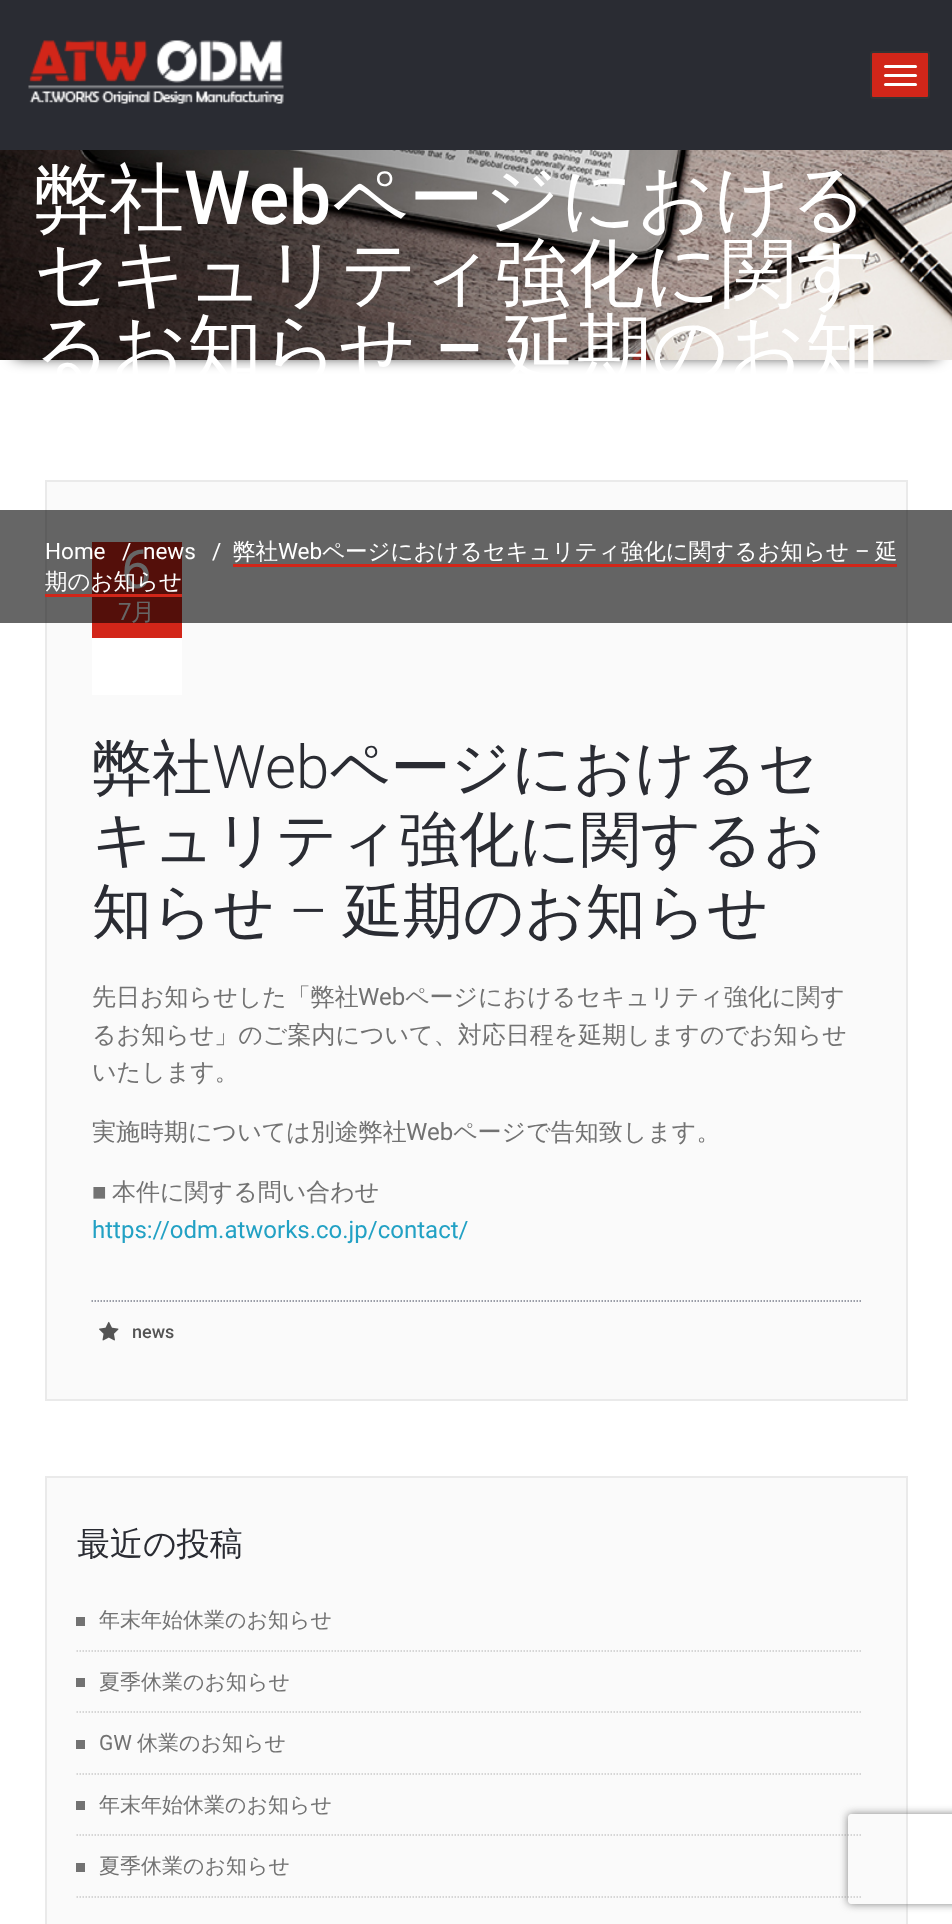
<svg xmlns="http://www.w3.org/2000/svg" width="952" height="1924">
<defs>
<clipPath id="clip1"><path d="M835 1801h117v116h-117zm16 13h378c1.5 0 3 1.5 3 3v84c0 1.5-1.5 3-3 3h-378c-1.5 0-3-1.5-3-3v-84c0-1.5 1.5-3 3-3z" clip-rule="evenodd"/></clipPath>
</defs>
<rect width="100%" height="100%" fill="#fff"/>
<rect x="15" y="26" width="923" height="330" fill="#000" filter="blur(7.5px)"/>
<rect width="952" height="150" fill="#2a2c33"/>
<image x="28" y="40" width="256" height="64" href="media/1.png"/>
<rect x="871" y="52" width="58" height="46" rx="2" fill="#d22619" stroke="#333" stroke-width="2"/>
<rect x="884" y="65" width="33" height="3" rx="1.5" fill="#fff"/>
<rect x="884" y="74" width="33" height="3" rx="1.5" fill="#fff"/>
<rect x="884" y="83" width="33" height="3" rx="1.5" fill="#fff"/>
<image x="0" y="150" width="952" height="210" href="media/2.png"/>
<text x="34" y="224" style="font-family:WenQuanYi Zen Hei;font-size:75px;font-weight:500;fill:#fff">弊社</text>
<text x="184" y="224" style="font-family:Roboto;font-size:75px;font-weight:500;fill:#fff">Web</text>
<text x="332" y="224" style="font-family:WenQuanYi Zen Hei;font-size:75px;font-weight:500;fill:#fff">ページにおける</text>
<text x="34" y="299" style="font-family:WenQuanYi Zen Hei;font-size:75px;font-weight:500;fill:#fff">セキュリティ強化に関す</text>
<text x="34" y="374" style="font-family:WenQuanYi Zen Hei;font-size:75px;font-weight:500;fill:#fff">るお知らせ</text>
<text x="435" y="374" style="font-family:Roboto;font-size:75px;font-weight:500;fill:#fff">–</text>
<text x="502" y="374" style="font-family:WenQuanYi Zen Hei;font-size:75px;font-weight:500;fill:#fff">延期のお知</text>
<rect x="46" y="481" width="861" height="919" fill="#fafafa" stroke="#eaeaea" stroke-width="2"/>
<rect x="92" y="542" width="90" height="96" fill="#d22619"/>
<text x="121" y="588" style="font-family:Roboto;font-size:54px;fill:#fff">6</text>
<text x="118" y="620" style="font-family:Roboto;font-size:24px;fill:#fff">7</text>
<text x="131" y="620" style="font-family:WenQuanYi Zen Hei;font-size:24px;font-weight:500;fill:#fff">月</text>
<rect y="510" width="952" height="113" fill="#00000099"/>
<text x="45" y="559" style="font-family:Roboto;font-size:22.5px;fill:#fff">Home</text>
<text x="122" y="559" style="font-family:Roboto;font-size:22.5px;fill:#fff">/</text>
<text x="143" y="559" style="font-family:Roboto;font-size:22.5px;fill:#fff">news</text>
<text x="212" y="559" style="font-family:Roboto;font-size:22.5px;fill:#fff">/</text>
<text x="233" y="559" style="font-family:WenQuanYi Zen Hei;font-size:22.5px;font-weight:500;fill:#fff">弊社</text>
<text x="278" y="559" style="font-family:Roboto;font-size:22.5px;fill:#fff">Web</text>
<text x="322" y="559" style="font-family:WenQuanYi Zen Hei;font-size:22.5px;font-weight:500;fill:#fff">ページにおけるセキュリティ強化に関するお知らせ</text>
<rect x="233" y="564" width="664" height="3" fill="#d22619"/>
<text x="855" y="559" style="font-family:Roboto;font-size:22.5px;fill:#fff">–</text>
<text x="875" y="559" style="font-family:WenQuanYi Zen Hei;font-size:22.5px;font-weight:500;fill:#fff">延</text>
<text x="45" y="589" style="font-family:WenQuanYi Zen Hei;font-size:22.5px;font-weight:500;fill:#fff">期のお知らせ</text>
<rect x="45" y="594" width="137" height="3" fill="#d22619"/>
<rect x="92" y="638" width="90" height="57" fill="#fff"/>
<text x="92" y="788" style="font-family:WenQuanYi Zen Hei;font-size:60px;font-weight:500;fill:#2a2c33">弊社</text>
<text x="212" y="788" style="font-family:Roboto;font-size:60px;font-weight:300;fill:#2a2c33">Web</text>
<text x="329" y="788" style="font-family:WenQuanYi Zen Hei;font-size:60px;font-weight:500;fill:#2a2c33">ページにおけるセ</text>
<text x="92" y="860" style="font-family:WenQuanYi Zen Hei;font-size:60px;font-weight:500;fill:#2a2c33">キュリティ強化に関するお</text>
<text x="92" y="932" style="font-family:WenQuanYi Zen Hei;font-size:60px;font-weight:500;fill:#2a2c33">知らせ</text>
<text x="289" y="932" style="font-family:Roboto;font-size:60px;font-weight:300;fill:#2a2c33">–</text>
<text x="343" y="932" style="font-family:WenQuanYi Zen Hei;font-size:60px;font-weight:500;fill:#2a2c33">延期のお知らせ</text>
<text x="92" y="1005" style="font-family:WenQuanYi Zen Hei;font-size:24px;font-weight:500;fill:#727272">先日お知らせした「弊社</text>
<text x="358" y="1005" style="font-family:Roboto;font-size:24px;fill:#727272">Web</text>
<text x="405" y="1005" style="font-family:WenQuanYi Zen Hei;font-size:24px;font-weight:500;fill:#727272">ページにおけるセキュリティ強化に関す</text>
<text x="92" y="1043" style="font-family:WenQuanYi Zen Hei;font-size:24px;font-weight:500;fill:#727272">るお知らせ」のご案内について、対応日程を延期しますのでお知らせ</text>
<text x="92" y="1080" style="font-family:WenQuanYi Zen Hei;font-size:24px;font-weight:500;fill:#727272">いたします。</text>
<text x="92" y="1140" style="font-family:WenQuanYi Zen Hei;font-size:24px;font-weight:500;fill:#727272">実施時期については別途弊社</text>
<text x="406" y="1140" style="font-family:Roboto;font-size:24px;fill:#727272">Web</text>
<text x="453" y="1140" style="font-family:WenQuanYi Zen Hei;font-size:24px;font-weight:500;fill:#727272">ページで告知致します。</text>
<text x="92" y="1200" style="font-family:Liberation Serif;font-size:24px;fill:#727272">■</text>
<text x="112" y="1200" style="font-family:WenQuanYi Zen Hei;font-size:24px;font-weight:500;fill:#727272">本件に関する問い合わせ</text>
<text x="92" y="1238" style="font-family:Roboto;font-size:24px;fill:#22a1c4">https://odm.atworks.co.jp/contact/</text>
<path d="M91.5 1301h769.5" fill="none" stroke="#7b7f8c" stroke-width="1.5" stroke-dasharray="1.5 1.5"/>
<image x="99" y="1321" width="20" height="20" href="media/3.png"/>
<text x="132" y="1338" style="font-family:Roboto;font-size:18px;font-weight:500;fill:#545454">news</text>
<rect x="46" y="1477" width="861" height="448" fill="#fafafa" stroke="#eaeaea" stroke-width="2"/>
<text x="77" y="1555" style="font-family:WenQuanYi Zen Hei;font-size:33px;font-weight:500;fill:#2a2c33">最近の投稿</text>
<path d="M76.5 1651h784.5" fill="none" stroke="#cacaca" stroke-width="1.5" stroke-dasharray="1.5 1.5"/>
<text x="99" y="1627" style="font-family:WenQuanYi Zen Hei;font-size:21px;font-weight:500;fill:#727272">年末年始休業のお知らせ</text>
<rect x="76" y="1617" width="9" height="9" fill="#727272"/>
<path d="M76.5 1712h784.5" fill="none" stroke="#cacaca" stroke-width="1.5" stroke-dasharray="1.5 1.5"/>
<text x="99" y="1689" style="font-family:WenQuanYi Zen Hei;font-size:21px;font-weight:500;fill:#727272">夏季休業のお知らせ</text>
<rect x="76" y="1678" width="9" height="9" fill="#727272"/>
<path d="M76.5 1774h784.5" fill="none" stroke="#cacaca" stroke-width="1.5" stroke-dasharray="1.5 1.5"/>
<text x="99" y="1750" style="font-family:Roboto;font-size:21px;fill:#727272">GW</text>
<rect x="76" y="1740" width="9" height="9" fill="#727272"/>
<text x="137" y="1750" style="font-family:WenQuanYi Zen Hei;font-size:21px;font-weight:500;fill:#727272">休業のお知らせ</text>
<path d="M76.5 1835h784.5" fill="none" stroke="#cacaca" stroke-width="1.5" stroke-dasharray="1.5 1.5"/>
<text x="99" y="1812" style="font-family:WenQuanYi Zen Hei;font-size:21px;font-weight:500;fill:#727272">年末年始休業のお知らせ</text>
<rect x="76" y="1801" width="9" height="9" fill="#727272"/>
<path d="M76.5 1897h784.5" fill="none" stroke="#cacaca" stroke-width="1.5" stroke-dasharray="1.5 1.5"/>
<text x="99" y="1873" style="font-family:WenQuanYi Zen Hei;font-size:21px;font-weight:500;fill:#727272">夏季休業のお知らせ</text>
<rect x="76" y="1863" width="9" height="9" fill="#727272"/>
<g clip-path="url(#clip1)">
<rect x="848" y="1814" width="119" height="90" rx="3" fill="#808080" filter="blur(4px)"/>
</g>
</svg>
